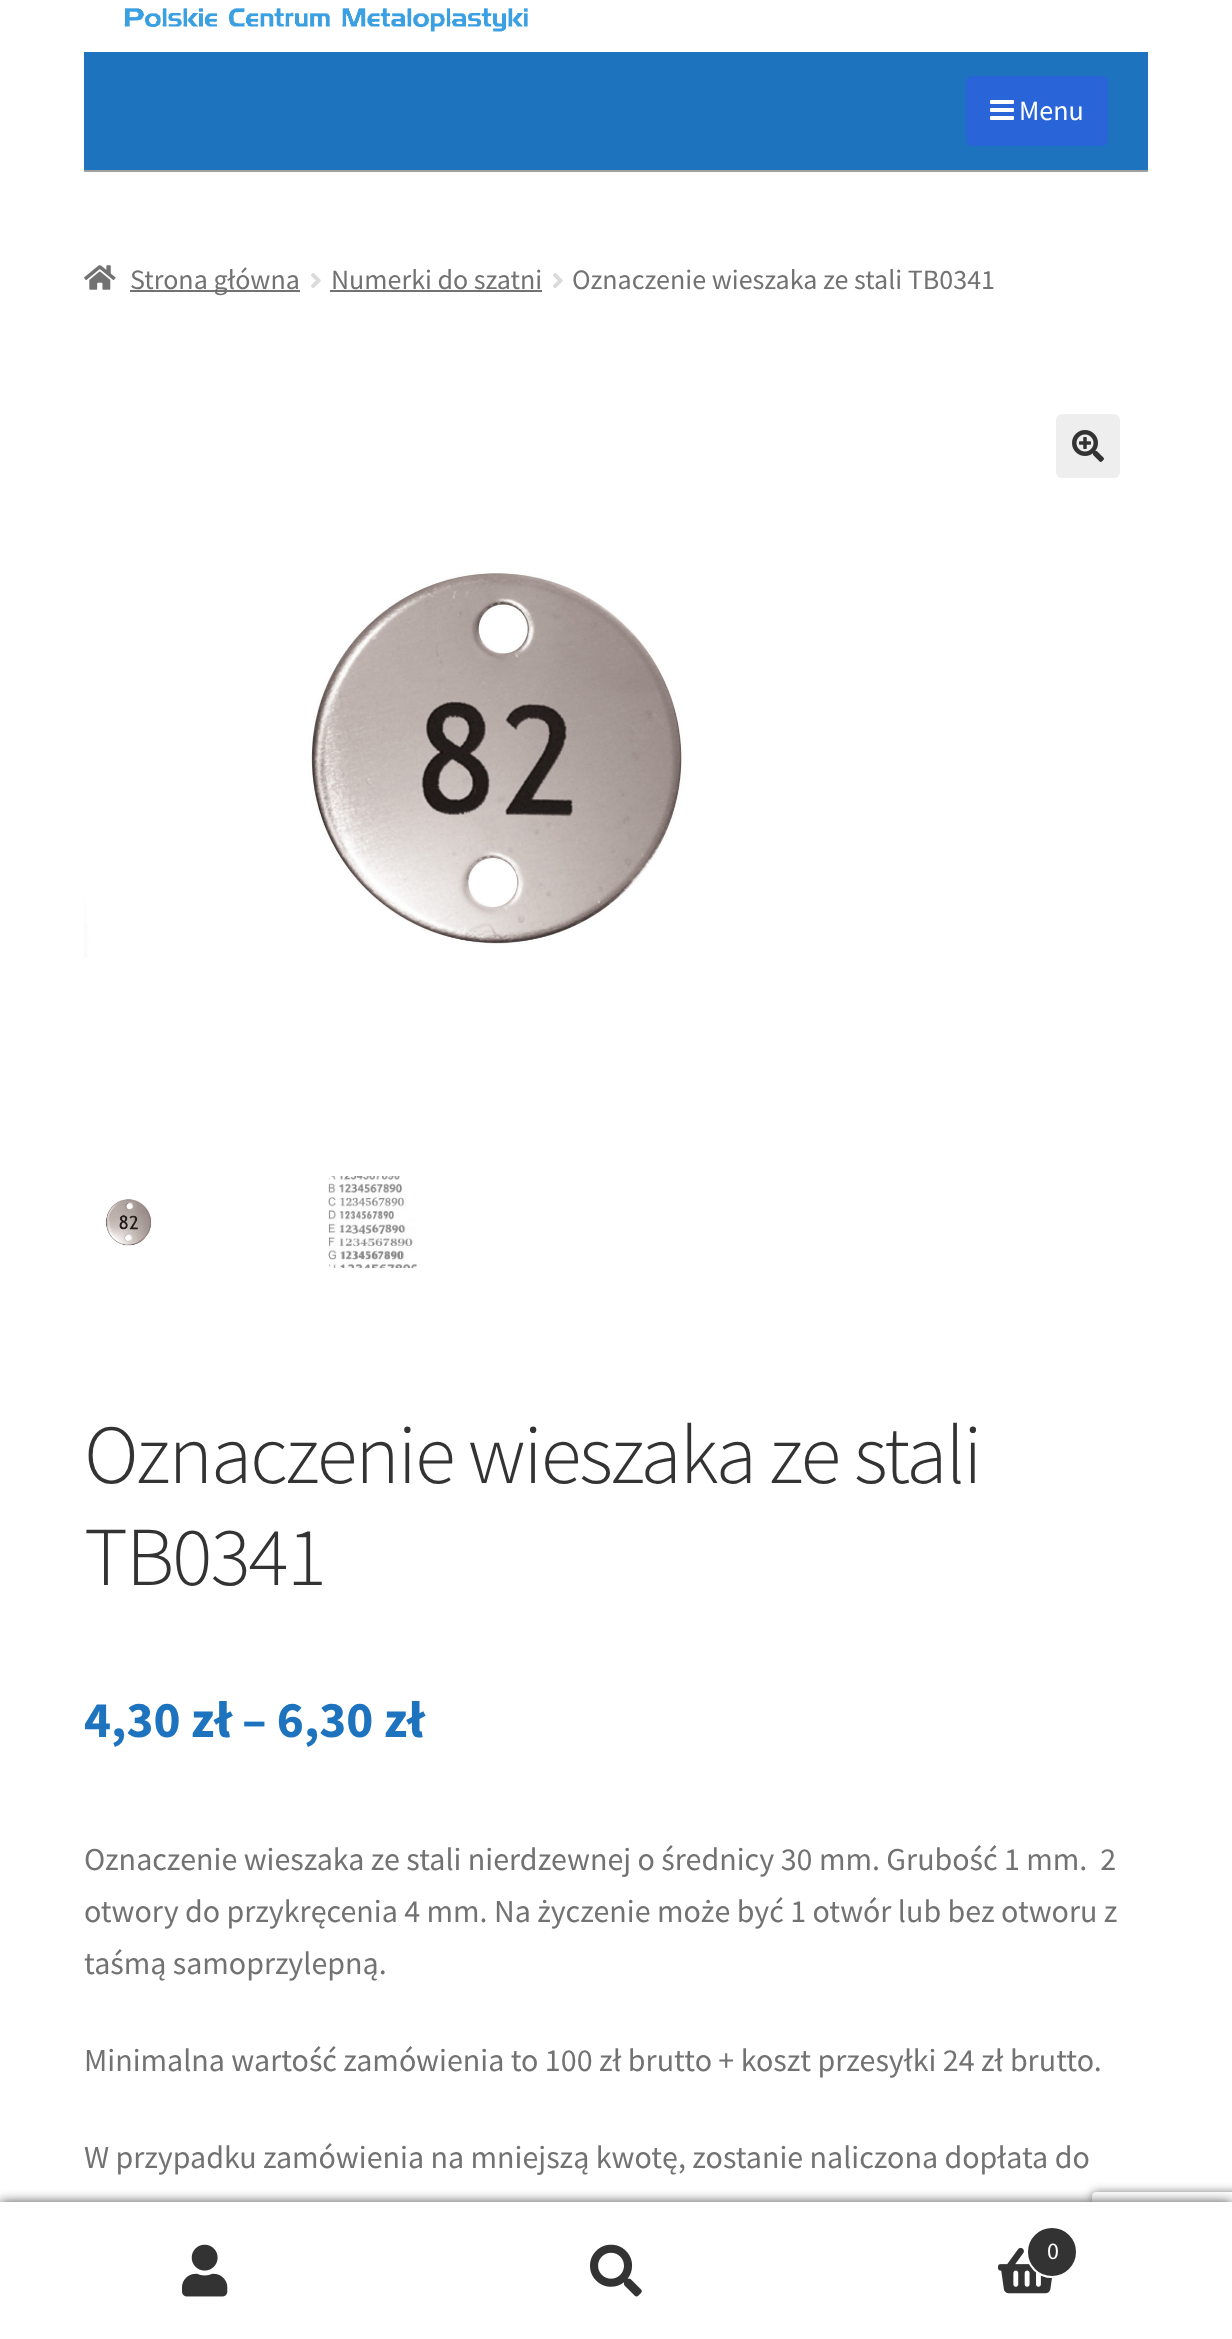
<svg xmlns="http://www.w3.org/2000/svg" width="1232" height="2339">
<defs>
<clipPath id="clip1"><path d="M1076 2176h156v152h-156zm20 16h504c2 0 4 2 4 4v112c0 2-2 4-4 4h-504c-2 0-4-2-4-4v-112c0-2 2-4 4-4z" clip-rule="evenodd"/></clipPath>
</defs>
<rect width="100%" height="100%" fill="#fff"/>
<rect x="84" y="52" width="1064" height="118" fill="#1e73be"/>
<rect x="84" y="170" width="1064" height="2" fill="#a0a0a0"/>
<image x="124" y="8" width="404" height="24" href="media/1.png"/>
<rect x="966" y="76" width="142" height="70" rx="6" fill="#2964d8"/>
<image x="990" y="100" width="24" height="20" href="media/2.png"/>
<text x="1019" y="120" style="font-family:Source Sans Pro;font-size:28px;fill:#fff">Menu</text>
<image x="84" y="265" width="32" height="25" href="media/3.png"/>
<rect x="130" y="290" width="170" height="2" fill="#727272"/>
<text x="130" y="289" style="font-family:Source Sans Pro;font-size:28px;fill:#727272">Strona główna</text>
<image x="311" y="273" width="10" height="16" href="media/4.png"/>
<text x="331" y="289" style="font-family:Source Sans Pro;font-size:28px;fill:#727272">Numerki do szatni</text>
<rect x="330" y="290" width="212" height="2" fill="#727272"/>
<image x="553" y="273" width="10" height="16" href="media/4.png"/>
<text x="572" y="289" style="font-family:Source Sans Pro;font-size:28px;fill:#727272">Oznaczenie wieszaka ze stali TB0341</text>
<rect x="1056" y="414" width="64" height="64" rx="6" fill="#eee"/>
<image x="1072" y="430" width="32" height="32" href="media/5.png"/>
<image x="84" y="573" width="599" height="384" href="media/6.png"/>
<image x="105" y="1199" width="47" height="47" href="media/7.png"/>
<image x="328" y="1176" width="89" height="92" href="media/8.png"/>
<text x="84" y="1483" style="font-family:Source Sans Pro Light;font-size:83.75px;font-weight:300;letter-spacing:-2px;fill:#333">Oznaczenie wieszaka ze stali</text>
<text x="84" y="1585" style="font-family:Source Sans Pro Light;font-size:83.75px;font-weight:300;letter-spacing:-2px;fill:#333">TB0341</text>
<text x="84" y="1737" style="font-family:Source Sans Pro;font-size:51.25px;font-weight:bold;fill:#1e73be">4,30 zł – 6,30 zł</text>
<text x="84" y="1870" style="font-family:Source Sans Pro;font-size:32px;fill:#727272" xml:space="preserve">Oznaczenie wieszaka ze stali nierdzewnej o średnicy 30 mm. Grubość 1 mm.  2</text>
<text x="84" y="1922" style="font-family:Source Sans Pro;font-size:32px;fill:#727272">otwory do przykręcenia 4 mm. Na życzenie może być 1 otwór lub bez otworu z</text>
<text x="84" y="1974" style="font-family:Source Sans Pro;font-size:32px;fill:#727272">taśmą samoprzylepną.</text>
<text x="84" y="2071" style="font-family:Source Sans Pro;font-size:32px;fill:#727272">Minimalna wartość zamówienia to 100 zł brutto + koszt przesyłki 24 zł brutto.</text>
<text x="84" y="2168" style="font-family:Source Sans Pro;font-size:32px;fill:#727272">W przypadku zamówienia na mniejszą kwotę, zostanie naliczona dopłata do</text>
<rect y="2202" width="1232" height="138" fill="#000000b3" filter="blur(6px)"/>
<g clip-path="url(#clip1)">
<rect x="1092" y="2192" width="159" height="120" rx="4" fill="#808080" filter="blur(5px)"/>
</g>
<rect y="2202" width="1232" height="137" fill="#fff"/>
<image x="182" y="2244" width="46" height="53" href="media/9.png"/>
<image x="590" y="2244" width="52" height="53" href="media/10.png"/>
<image x="998" y="2247" width="55" height="47" href="media/11.png"/>
<circle cx="1052" cy="2252" r="25" fill="#333" stroke="#fff" stroke-width="2"/>
<text x="1047" y="2259" style="font-family:Source Sans Pro;font-size:24px;fill:#fff">0</text>
</svg>
